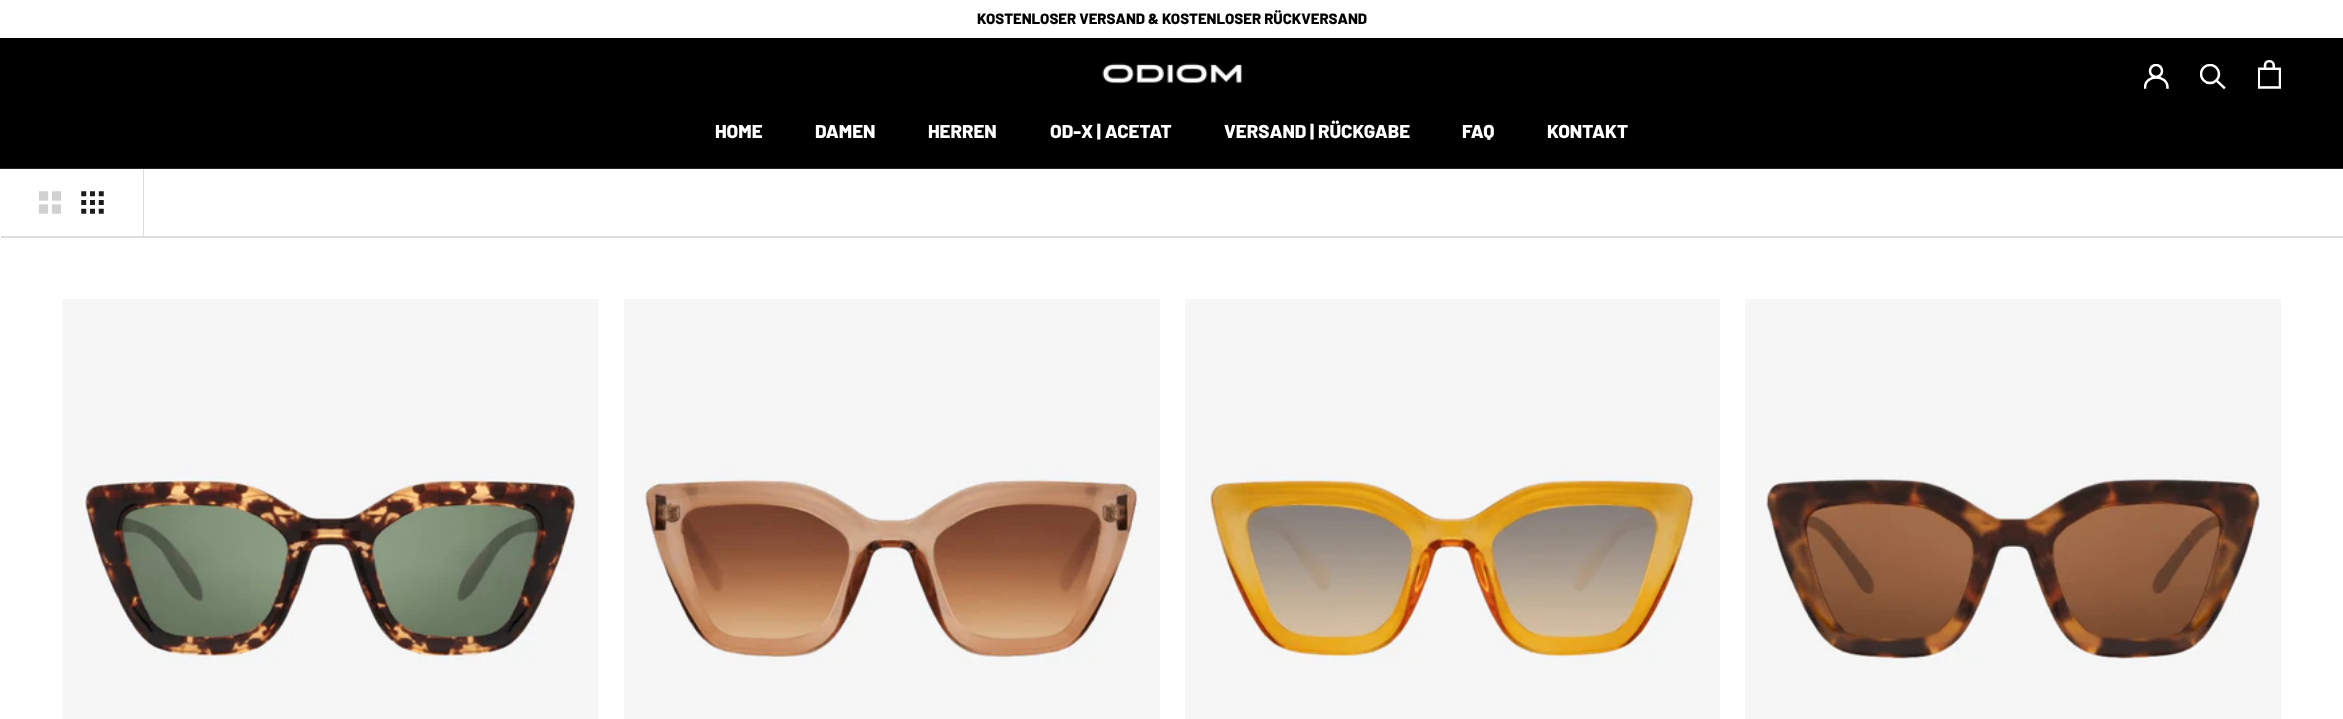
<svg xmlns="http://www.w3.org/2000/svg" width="2343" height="719">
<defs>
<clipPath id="clip1"><rect x="2144" y="64" width="25" height="25"/></clipPath>
<clipPath id="clip2"><rect x="2200" y="64" width="26" height="26"/></clipPath>
</defs>
<rect width="100%" height="100%" fill="#fff"/>
<text x="977" y="24" style="font-family:Barlow;font-size:15px;font-weight:800;fill:#000">KOSTENLOSER VERSAND &amp; KOSTENLOSER RÜCKVERSAND</text>
<rect y="38" width="2343" height="130" fill="#000"/>
<rect y="168" width="2343" height="1" fill="#262626"/>
<image x="1102" y="63" width="141" height="22" href="media/1.png"/>
<g clip-path="url(#clip1)">
<path d="M2145 87.5c0-13.5 22.5-13.5 22.5 0" fill="none" stroke="#fff" stroke-width="2.5" stroke-linecap="square"/>
<circle cx="2156" cy="71" r="6" fill="none" stroke="#fff" stroke-width="2.5"/>
</g>
<path d="M2224 87.5l-7.5-7" fill="none" stroke="#fff" stroke-width="2.5" stroke-linecap="square"/>
<g clip-path="url(#clip2)">
<circle cx="2210" cy="74" r="9" fill="none" stroke="#fff" stroke-width="2.5"/>
</g>
<image x="2258" y="60" width="23" height="29" href="media/2.png"/>
<text x="715" y="138" style="font-family:Barlow;font-size:18.75px;font-weight:800;fill:#fff">HOME</text>
<text x="815" y="138" style="font-family:Barlow;font-size:18.75px;font-weight:800;fill:#fff">DAMEN</text>
<text x="928" y="138" style="font-family:Barlow;font-size:18.75px;font-weight:800;fill:#fff">HERREN</text>
<text x="1050" y="138" style="font-family:Barlow;font-size:18.75px;font-weight:800;fill:#fff">OD-X | ACETAT</text>
<text x="1224" y="138" style="font-family:Barlow;font-size:18.75px;font-weight:800;fill:#fff">VERSAND | RÜCKGABE</text>
<text x="1462" y="138" style="font-family:Barlow;font-size:18.75px;font-weight:800;fill:#fff">FAQ</text>
<text x="1547" y="138" style="font-family:Barlow;font-size:18.75px;font-weight:800;fill:#fff">KONTAKT</text>
<path d="M1 236v2h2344v-68h-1v66z" fill="#ddd"/>
<rect x="143" y="169" width="1" height="67" fill="#ddd"/>
<image x="39" y="191" width="22" height="23" href="media/3.png"/>
<image x="81" y="191" width="23" height="23" href="media/4.png"/>
<image x="62" y="299" width="537" height="420" href="media/5.png"/>
<image x="624" y="299" width="536" height="420" href="media/6.png"/>
<image x="1185" y="299" width="535" height="420" href="media/7.png"/>
<image x="1745" y="299" width="536" height="420" href="media/8.png"/>
</svg>
